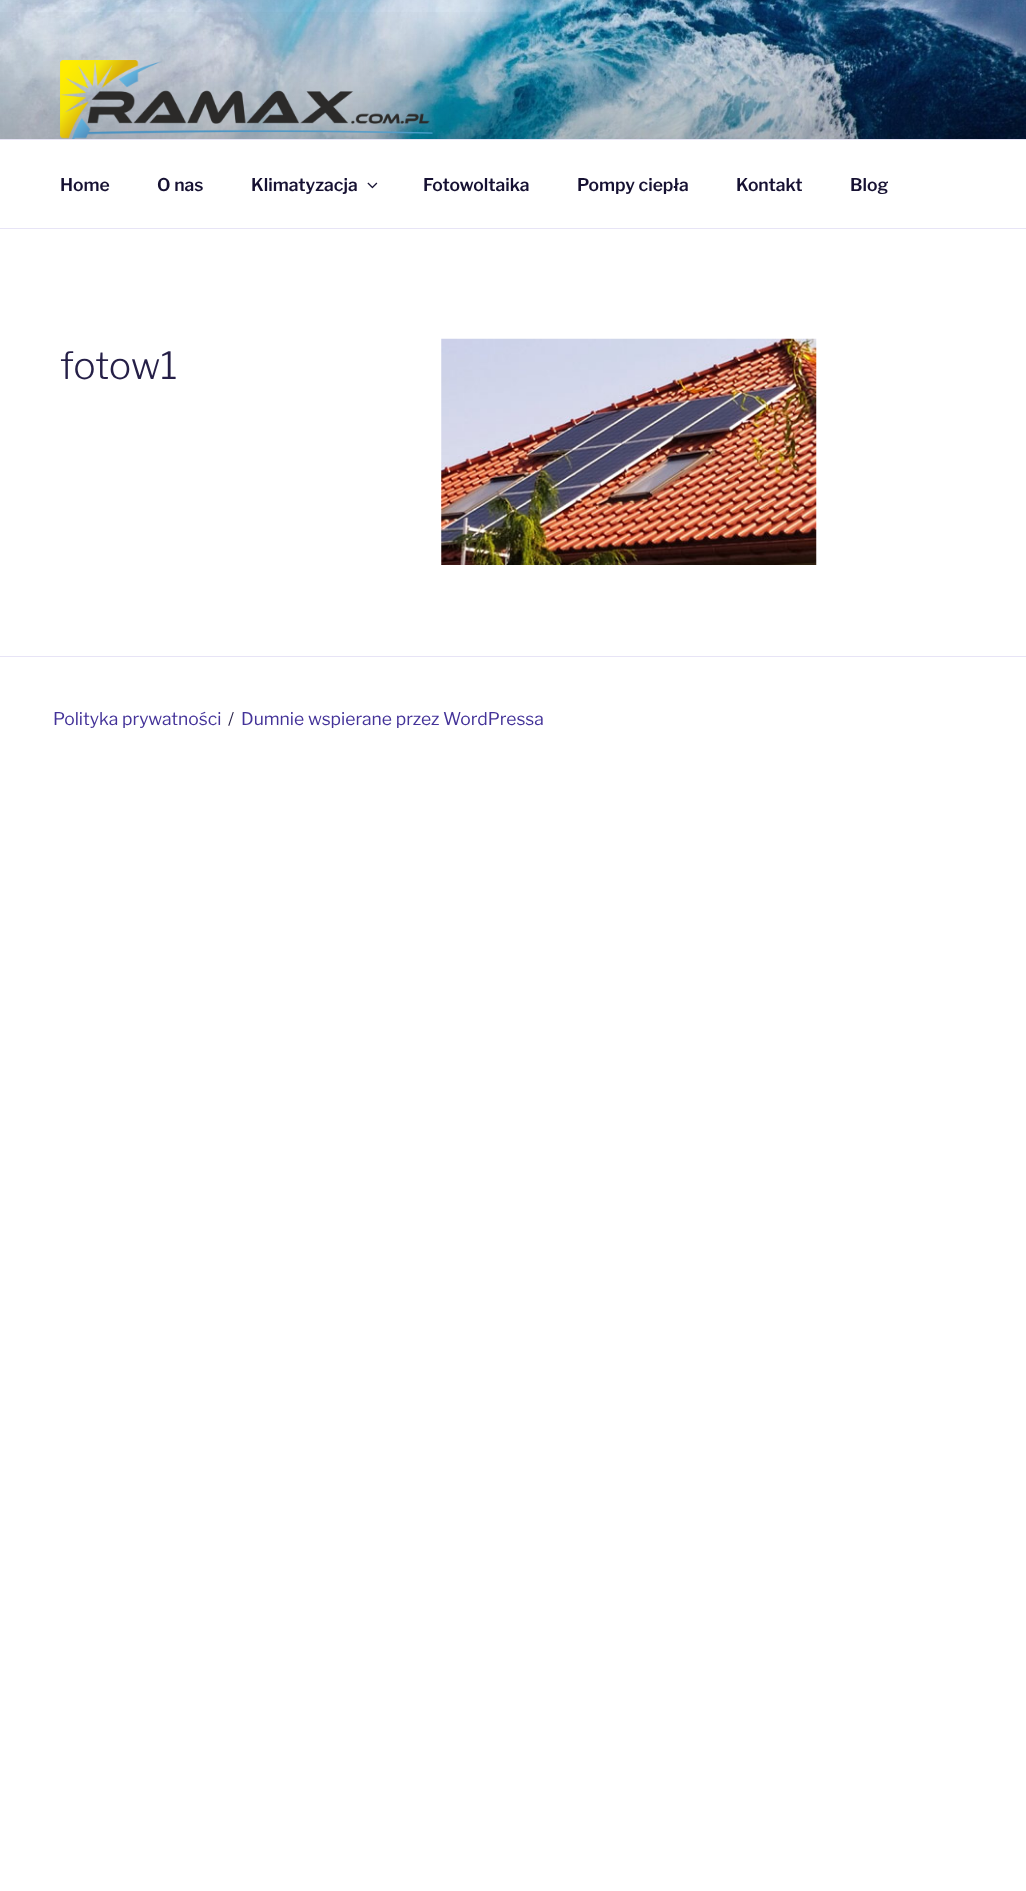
<svg xmlns="http://www.w3.org/2000/svg" width="1026" height="1891">
<defs>
<linearGradient id="g1" gradientUnits="userSpaceOnUse" x1="513" y1="0" x2="513" y2="229"><stop offset="0" stop-color="#000" stop-opacity="0"/><stop offset="0.75" stop-color="#000" stop-opacity="0.3"/><stop offset="1" stop-color="#000" stop-opacity="0.3"/></linearGradient>
</defs>
<rect width="100%" height="100%" fill="#fff"/>
<image x="0" y="0" width="1026" height="139" href="media/1.png"/>
<rect y="12" width="1026" height="127" fill="url(#g1)"/>
<image x="60" y="60" width="373" height="79" href="media/2.png"/>
<rect y="139" width="1026" height="1" fill="#e7e4f6"/>
<rect y="228" width="1026" height="1" fill="#e7e4f6"/>
<text x="60" y="191" style="font-family:Libre Franklin;font-size:17.5px;font-weight:600;fill:#161132">Home</text>
<text x="157" y="191" style="font-family:Libre Franklin;font-size:17.5px;font-weight:600;fill:#161132">O nas</text>
<text x="251" y="191" style="font-family:Libre Franklin;font-size:17.5px;font-weight:600;fill:#161132">Klimatyzacja</text>
<image x="367" y="182" width="11" height="7" href="media/3.png"/>
<text x="423" y="191" style="font-family:Libre Franklin;font-size:17.5px;font-weight:600;fill:#161132">Fotowoltaika</text>
<text x="577" y="191" style="font-family:Libre Franklin;font-size:17.5px;font-weight:600;fill:#161132">Pompy ciepła</text>
<text x="736" y="191" style="font-family:Libre Franklin;font-size:17.5px;font-weight:600;fill:#161132">Kontakt</text>
<text x="850" y="191" style="font-family:Libre Franklin;font-size:17.5px;font-weight:600;fill:#161132">Blog</text>
<text x="60" y="379" style="font-family:Libre Franklin;font-size:37.5px;font-weight:300;fill:#251f47">fotow1</text>
<image x="441" y="338" width="376" height="227" href="media/4.png"/>
<rect y="656" width="1026" height="1" fill="#e7e4f6"/>
<text x="53" y="725" style="font-family:Libre Franklin;font-size:17.5px;fill:#439">Polityka prywatności</text>
<text x="228" y="725" style="font-family:Libre Franklin;font-size:17.5px;fill:#251f47">/</text>
<text x="241" y="725" style="font-family:Libre Franklin;font-size:17.5px;fill:#439">Dumnie wspierane przez WordPressa</text>
</svg>
